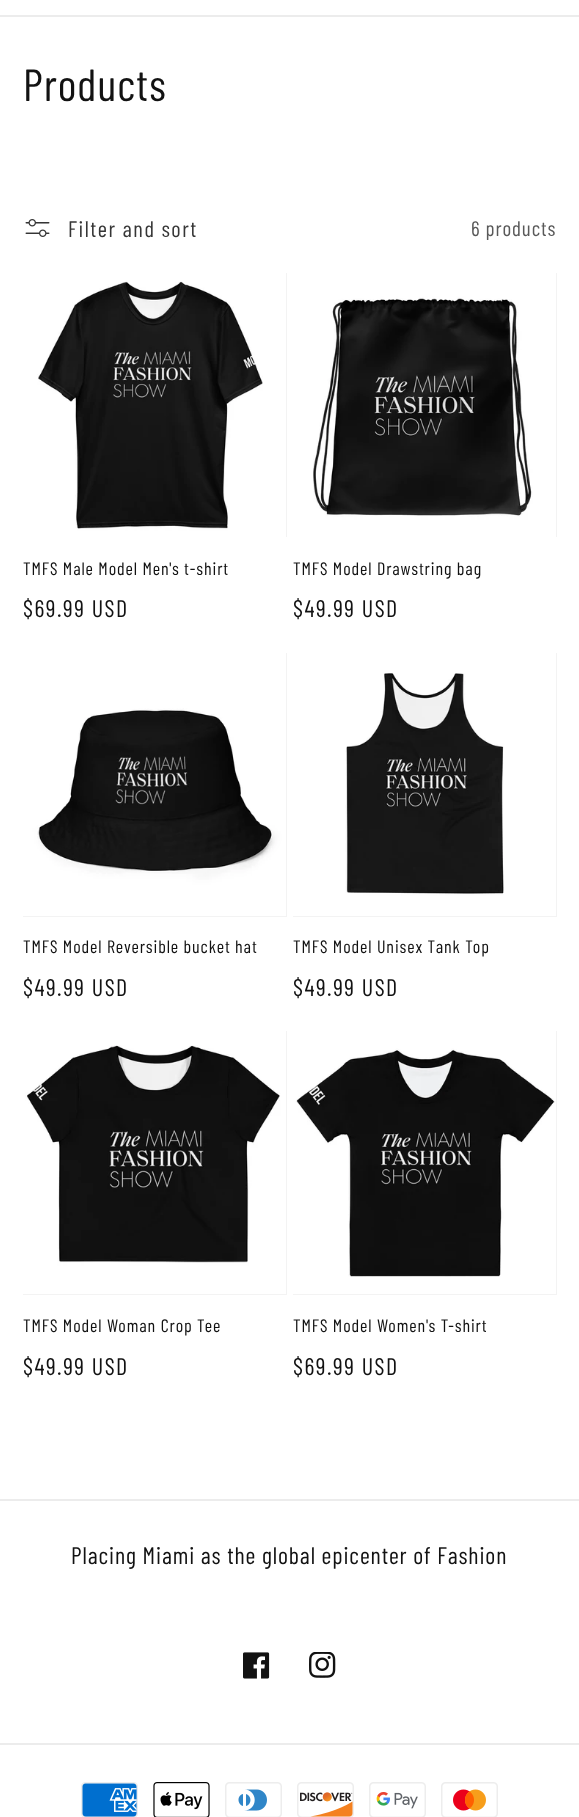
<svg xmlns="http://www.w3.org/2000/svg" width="579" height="1817">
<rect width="100%" height="100%" fill="#fff"/>
<rect y="15" width="579" height="2" fill="#ececec"/>
<text x="23" y="101" style="font-family:Barlow Condensed;font-size:45px;letter-spacing:0.9px;fill:#121212">Products</text>
<image x="25" y="219" width="25" height="18" href="media/1.png"/>
<text x="68" y="237" style="font-family:Barlow Condensed;font-size:22.5px;letter-spacing:1.5px;fill:#363636">Filter and sort</text>
<text x="471" y="236" style="font-family:Barlow Condensed;font-size:21px;letter-spacing:0.9px;fill:#595959">6 products</text>
<rect x="286" y="273" width="1" height="264" fill="#f3f3f3"/>
<image x="23" y="273" width="263" height="264" href="media/2.png"/>
<text x="23" y="575" style="font-family:Barlow Condensed;font-size:18px;letter-spacing:0.9px;fill:#121212">TMFS Male Model Men's t-shirt</text>
<text x="23" y="617" style="font-family:Barlow Condensed;font-size:24px;letter-spacing:1.5px;fill:#121212">$69.99 USD</text>
<rect x="556" y="273" width="1" height="264" fill="#f3f3f3"/>
<image x="293" y="273" width="263" height="264" href="media/3.png"/>
<text x="293" y="575" style="font-family:Barlow Condensed;font-size:18px;letter-spacing:0.9px;fill:#121212">TMFS Model Drawstring bag</text>
<text x="293" y="617" style="font-family:Barlow Condensed;font-size:24px;letter-spacing:1.5px;fill:#121212">$49.99 USD</text>
<rect x="23" y="653" width="264" height="264" fill="#f3f3f3"/>
<image x="23" y="653" width="263" height="263" href="media/4.png"/>
<text x="23" y="953" style="font-family:Barlow Condensed;font-size:18px;letter-spacing:0.9px;fill:#121212">TMFS Model Reversible bucket hat</text>
<text x="23" y="996" style="font-family:Barlow Condensed;font-size:24px;letter-spacing:1.5px;fill:#121212">$49.99 USD</text>
<rect x="293" y="653" width="264" height="264" fill="#f3f3f3"/>
<image x="293" y="653" width="263" height="263" href="media/5.png"/>
<text x="293" y="953" style="font-family:Barlow Condensed;font-size:18px;letter-spacing:0.9px;fill:#121212">TMFS Model Unisex Tank Top</text>
<text x="293" y="996" style="font-family:Barlow Condensed;font-size:24px;letter-spacing:1.5px;fill:#121212">$49.99 USD</text>
<rect x="23" y="1031" width="264" height="264" fill="#f3f3f3"/>
<image x="23" y="1031" width="263" height="263" href="media/6.png"/>
<text x="23" y="1332" style="font-family:Barlow Condensed;font-size:18px;letter-spacing:0.9px;fill:#121212">TMFS Model Woman Crop Tee</text>
<text x="23" y="1375" style="font-family:Barlow Condensed;font-size:24px;letter-spacing:1.5px;fill:#121212">$49.99 USD</text>
<rect x="293" y="1031" width="264" height="264" fill="#f3f3f3"/>
<image x="293" y="1031" width="263" height="263" href="media/7.png"/>
<text x="293" y="1332" style="font-family:Barlow Condensed;font-size:18px;letter-spacing:0.9px;fill:#121212">TMFS Model Women's T-shirt</text>
<text x="293" y="1375" style="font-family:Barlow Condensed;font-size:24px;letter-spacing:1.5px;fill:#121212">$69.99 USD</text>
<rect y="1499" width="579" height="2" fill="#ececec"/>
<text x="71" y="1564" style="font-family:Barlow Condensed;font-size:24px;letter-spacing:0.9px;fill:#121212">Placing Miami as the global epicenter of Fashion</text>
<image x="243" y="1652" width="27" height="27" href="media/8.png"/>
<image x="309" y="1652" width="27" height="26" href="media/9.png"/>
<rect y="1743" width="579" height="2" fill="#ececec"/>
<image x="81" y="1782" width="57" height="35" href="media/10.png"/>
<image x="153" y="1782" width="57" height="35" href="media/11.png"/>
<image x="225" y="1782" width="57" height="35" href="media/12.png"/>
<image x="297" y="1782" width="57" height="35" href="media/13.png"/>
<image x="369" y="1782" width="57" height="35" href="media/14.png"/>
<image x="441" y="1782" width="57" height="35" href="media/15.png"/>
</svg>
